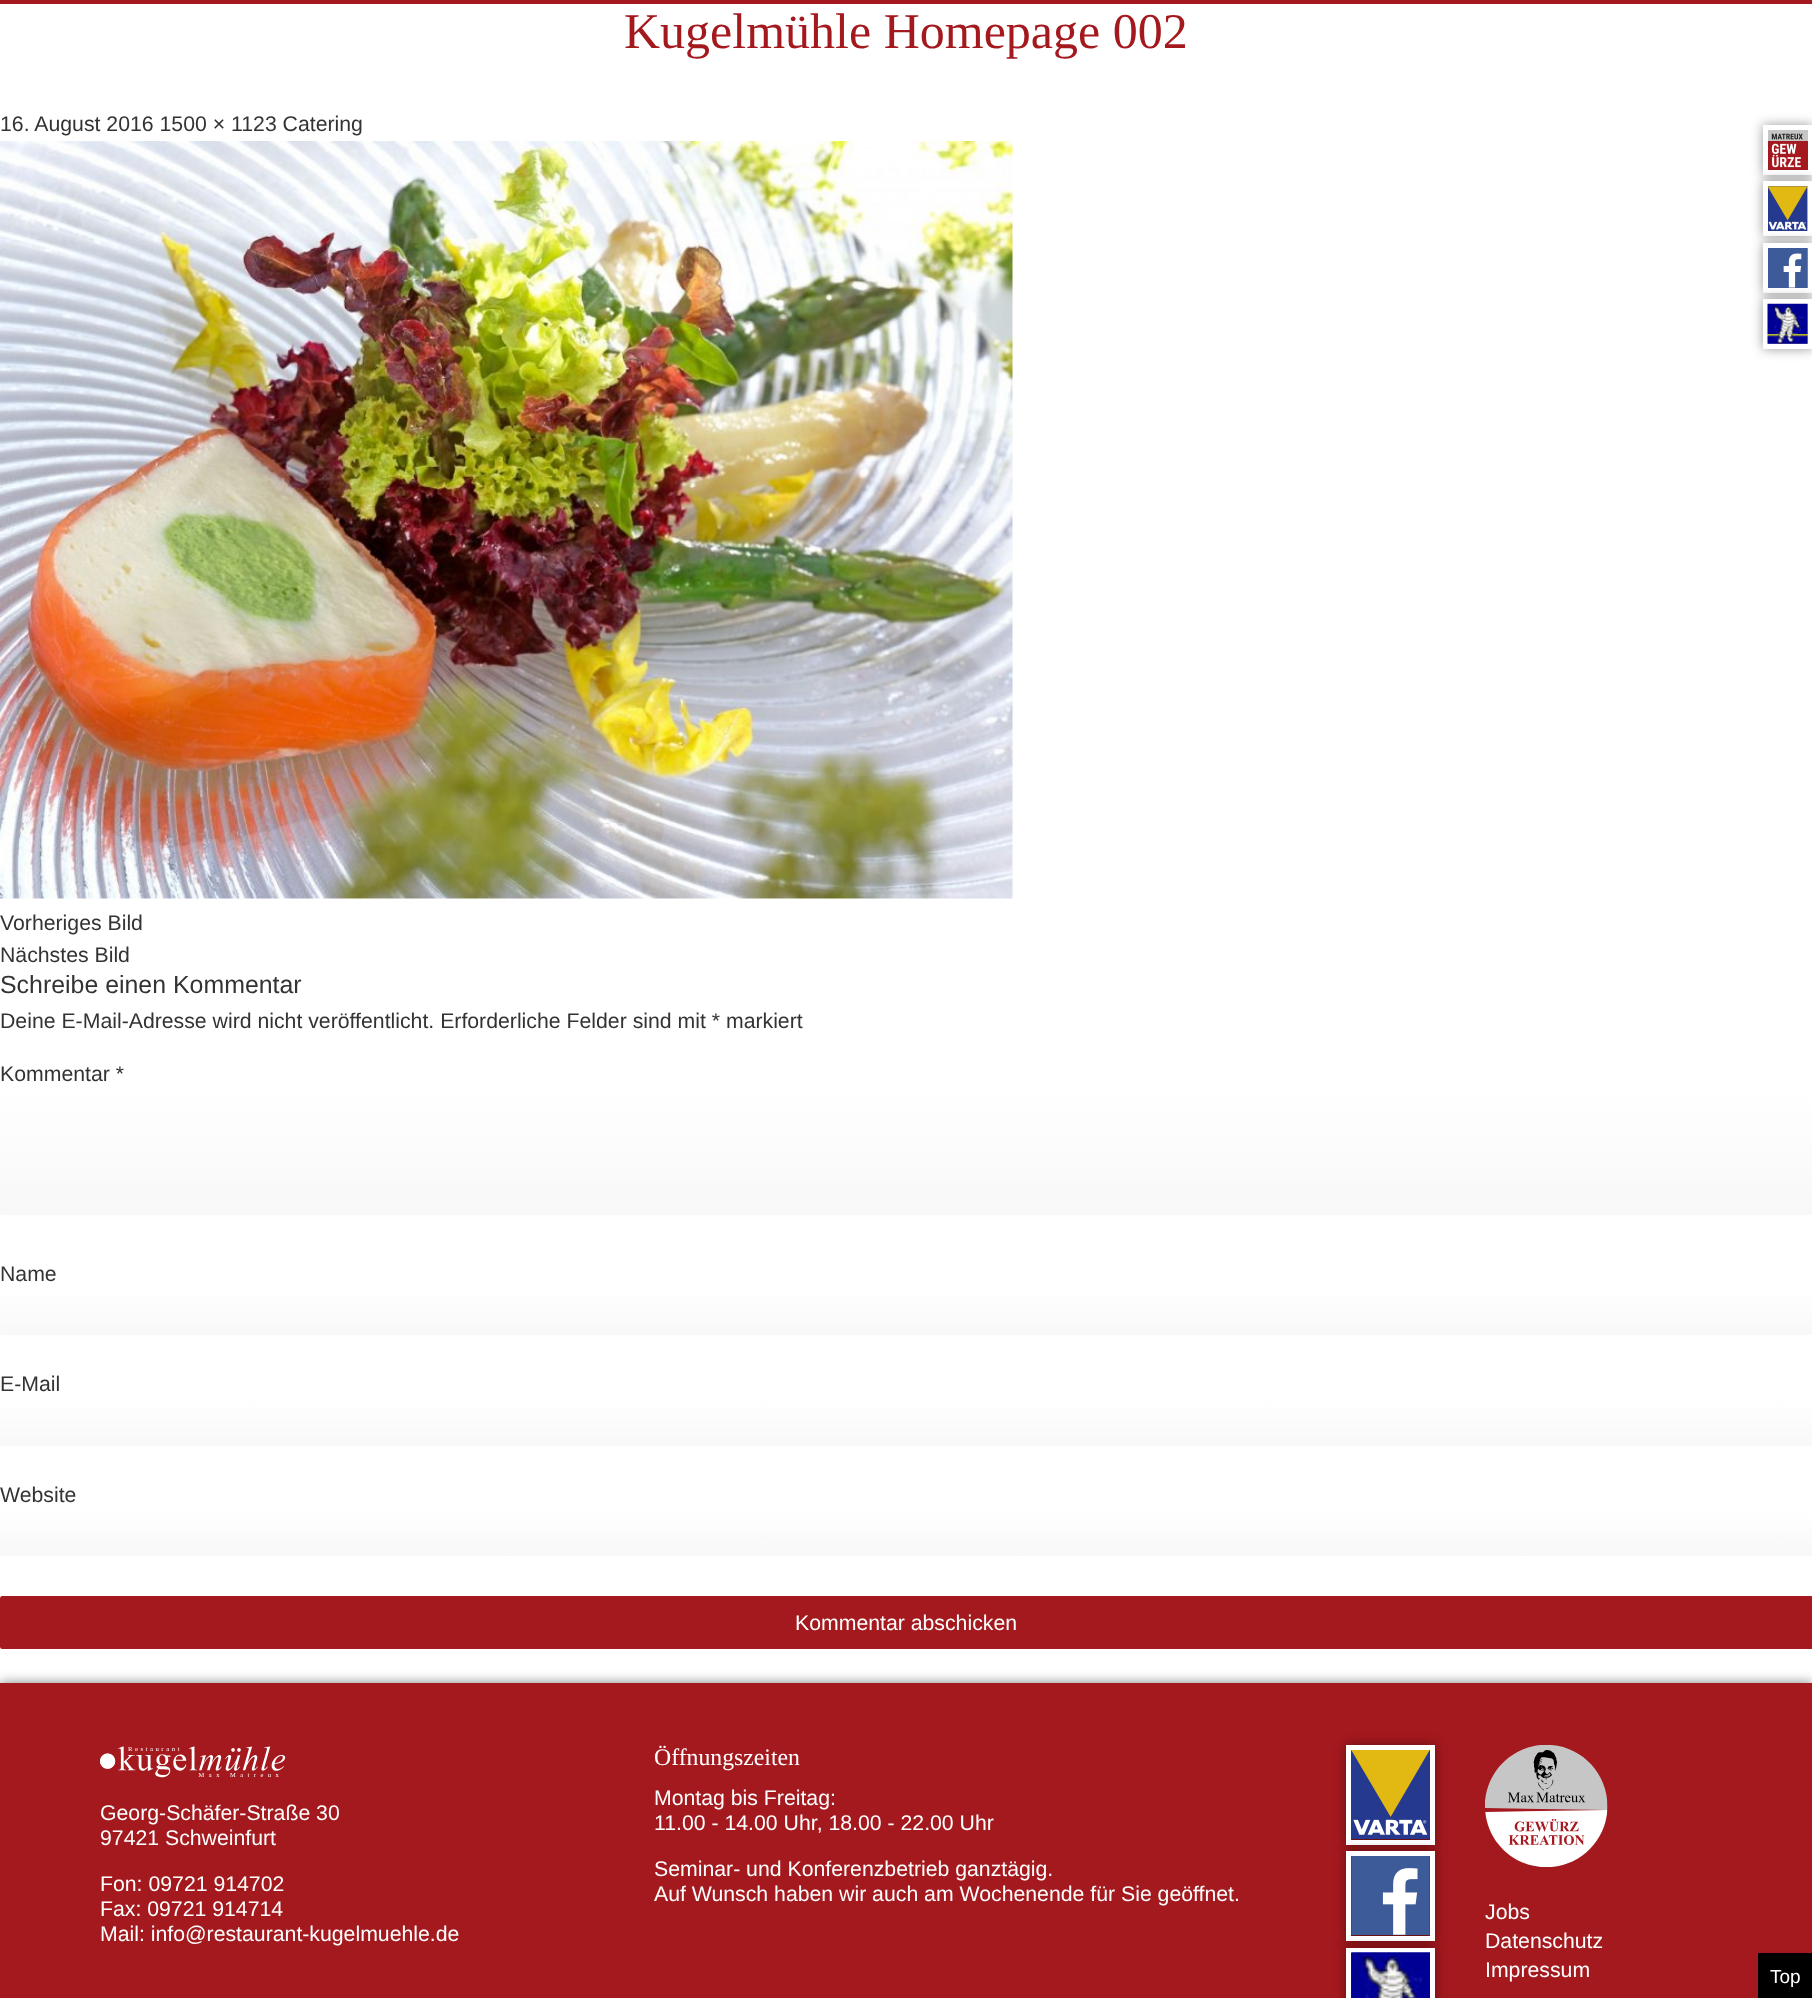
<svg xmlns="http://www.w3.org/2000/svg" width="1812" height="1998">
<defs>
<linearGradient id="g1" gradientUnits="userSpaceOnUse" x1="906" y1="1090" x2="906" y2="1215"><stop offset="0" stop-color="#fff"/><stop offset="1" stop-color="#f8f8f8"/></linearGradient>
<linearGradient id="g2" gradientUnits="userSpaceOnUse" x1="906" y1="1290" x2="906" y2="1335"><stop offset="0" stop-color="#fff"/><stop offset="1" stop-color="#f8f8f8"/></linearGradient>
<linearGradient id="g3" gradientUnits="userSpaceOnUse" x1="906" y1="1401" x2="906" y2="1446"><stop offset="0" stop-color="#fff"/><stop offset="1" stop-color="#f8f8f8"/></linearGradient>
<linearGradient id="g4" gradientUnits="userSpaceOnUse" x1="906" y1="1511" x2="906" y2="1556"><stop offset="0" stop-color="#fff"/><stop offset="1" stop-color="#f8f8f8"/></linearGradient>
<clipPath id="clip1"><path d="M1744 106h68v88h-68zm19 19h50v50h-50z" clip-rule="evenodd"/></clipPath>
</defs>
<rect width="100%" height="100%" fill="#fff"/>
<rect width="1812" height="4" fill="#a4191e"/>
<text x="624" y="48" style="font-family:Liberation Serif;font-size:50px;fill:#a4191e">Kugelmühle Homepage 002</text>
<text x="0" y="131" style="font-family:Liberation Sans;font-size:21.25px;fill:#333">16. August 2016 1500 × 1123 Catering</text>
<image x="0" y="141" width="1013" height="758" href="media/1.png"/>
<text x="0" y="930" style="font-family:Liberation Sans;font-size:21.25px;fill:#333">Vorheriges Bild</text>
<text x="0" y="962" style="font-family:Liberation Sans;font-size:21.25px;fill:#333">Nächstes Bild</text>
<text x="0" y="993" style="font-family:Liberation Sans;font-size:24.9px;fill:#333">Schreibe einen Kommentar</text>
<text x="0" y="1028" style="font-family:Liberation Sans;font-size:21.25px;fill:#333">Deine E-Mail-Adresse wird nicht veröffentlicht. Erforderliche Felder sind mit * markiert</text>
<text x="0" y="1081" style="font-family:Liberation Sans;font-size:21.25px;fill:#333">Kommentar *</text>
<rect y="1090" width="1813" height="125" rx="2.5" fill="url(#g1)"/>
<text x="0" y="1281" style="font-family:Liberation Sans;font-size:21.25px;fill:#333">Name</text>
<rect y="1290" width="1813" height="45" rx="2.5" fill="url(#g2)"/>
<text x="0" y="1391" style="font-family:Liberation Sans;font-size:21.25px;fill:#333">E-Mail</text>
<rect y="1401" width="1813" height="45" rx="2.5" fill="url(#g3)"/>
<text x="0" y="1502" style="font-family:Liberation Sans;font-size:21.25px;fill:#333">Website</text>
<rect y="1511" width="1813" height="45" rx="2.5" fill="url(#g4)"/>
<rect y="1596" width="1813" height="53" rx="2.5" fill="#a4191e"/>
<text x="795" y="1630" style="font-family:Liberation Sans;font-size:21.25px;fill:#fff">Kommentar abschicken</text>
<g clip-path="url(#clip1)">
<rect x="1763" y="125" width="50" height="50" fill="#00000066" filter="blur(6px)"/>
</g>
<rect x="1763" y="181" width="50" height="55" fill="#00000066" filter="blur(6px)"/>
<image x="1768" y="130" width="40" height="40" href="media/2.png"/>
<rect x="1765.5" y="183.5" width="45" height="50" fill="none" stroke="#fff" stroke-width="5"/>
<rect x="1763" y="243" width="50" height="50" fill="#00000066" filter="blur(6px)"/>
<image x="1768" y="186" width="40" height="45" href="media/3.png"/>
<rect x="1765.5" y="245.5" width="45" height="45" fill="none" stroke="#fff" stroke-width="5"/>
<rect x="1763" y="299" width="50" height="50" fill="#00000066" filter="blur(6px)"/>
<image x="1768" y="248" width="40" height="40" href="media/4.png"/>
<rect x="1765.5" y="301.5" width="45" height="45" fill="none" stroke="#fff" stroke-width="5"/>
<image x="1767" y="303" width="41" height="41" href="media/5.png"/>
<rect y="1683" width="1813" height="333" fill="#00000080" filter="blur(6px)"/>
<rect y="1683" width="1812" height="315" fill="#a4191e"/>
<image x="100" y="1746" width="186" height="32" href="media/6.png"/>
<text x="100" y="1820" style="font-family:Liberation Sans;font-size:21.25px;fill:#fff">Georg-Schäfer-Straße 30</text>
<text x="100" y="1845" style="font-family:Liberation Sans;font-size:21.25px;fill:#fff">97421 Schweinfurt</text>
<text x="100" y="1891" style="font-family:Liberation Sans;font-size:21.25px;fill:#fff">Fon: 09721 914702</text>
<text x="100" y="1916" style="font-family:Liberation Sans;font-size:21.25px;fill:#fff">Fax: 09721 914714</text>
<text x="100" y="1941" style="font-family:Liberation Sans;font-size:21.25px;fill:#fff">Mail: info@restaurant-kugelmuehle.de</text>
<text x="654" y="1765" style="font-family:Liberation Serif;font-size:23.75px;fill:#fff">Öffnungszeiten</text>
<text x="654" y="1805" style="font-family:Liberation Sans;font-size:21.25px;fill:#fff">Montag bis Freitag:</text>
<text x="654" y="1830" style="font-family:Liberation Sans;font-size:21.25px;fill:#fff">11.00 - 14.00 Uhr, 18.00 - 22.00 Uhr</text>
<text x="654" y="1876" style="font-family:Liberation Sans;font-size:21.25px;fill:#fff">Seminar- und Konferenzbetrieb ganztägig.</text>
<text x="654" y="1901" style="font-family:Liberation Sans;font-size:21.25px;fill:#fff">Auf Wunsch haben wir auch am Wochenende für Sie geöffnet.</text>
<rect x="1346" y="1745" width="89" height="100" fill="#00000066" filter="blur(6px)"/>
<rect x="1348.5" y="1747.5" width="84" height="95" fill="none" stroke="#fff" stroke-width="5"/>
<rect x="1346" y="1851" width="89" height="90" fill="#00000066" filter="blur(6px)"/>
<image x="1351" y="1750" width="79" height="89" href="media/7.png"/>
<rect x="1348.5" y="1853.5" width="84" height="85" fill="none" stroke="#fff" stroke-width="5"/>
<rect x="1346" y="1948" width="89" height="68" fill="#00000066" filter="blur(6px)"/>
<image x="1351" y="1856" width="79" height="79" href="media/8.png"/>
<rect x="1348.5" y="1950.5" width="84" height="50" fill="none" stroke="#fff" stroke-width="5"/>
<image x="1351" y="1952" width="79" height="46" href="media/9.png"/>
<image x="1485" y="1745" width="123" height="122" href="media/10.png"/>
<text x="1485" y="1919" style="font-family:Liberation Sans;font-size:21.25px;fill:#fff">Jobs</text>
<text x="1485" y="1948" style="font-family:Liberation Sans;font-size:21.25px;fill:#fff">Datenschutz</text>
<text x="1485" y="1977" style="font-family:Liberation Sans;font-size:21.25px;fill:#fff">Impressum</text>
<rect x="1758" y="1953" width="54" height="45" fill="#000"/>
<text x="1770" y="1983" style="font-family:Liberation Sans;font-size:19px;fill:#fff">Top</text>
</svg>
